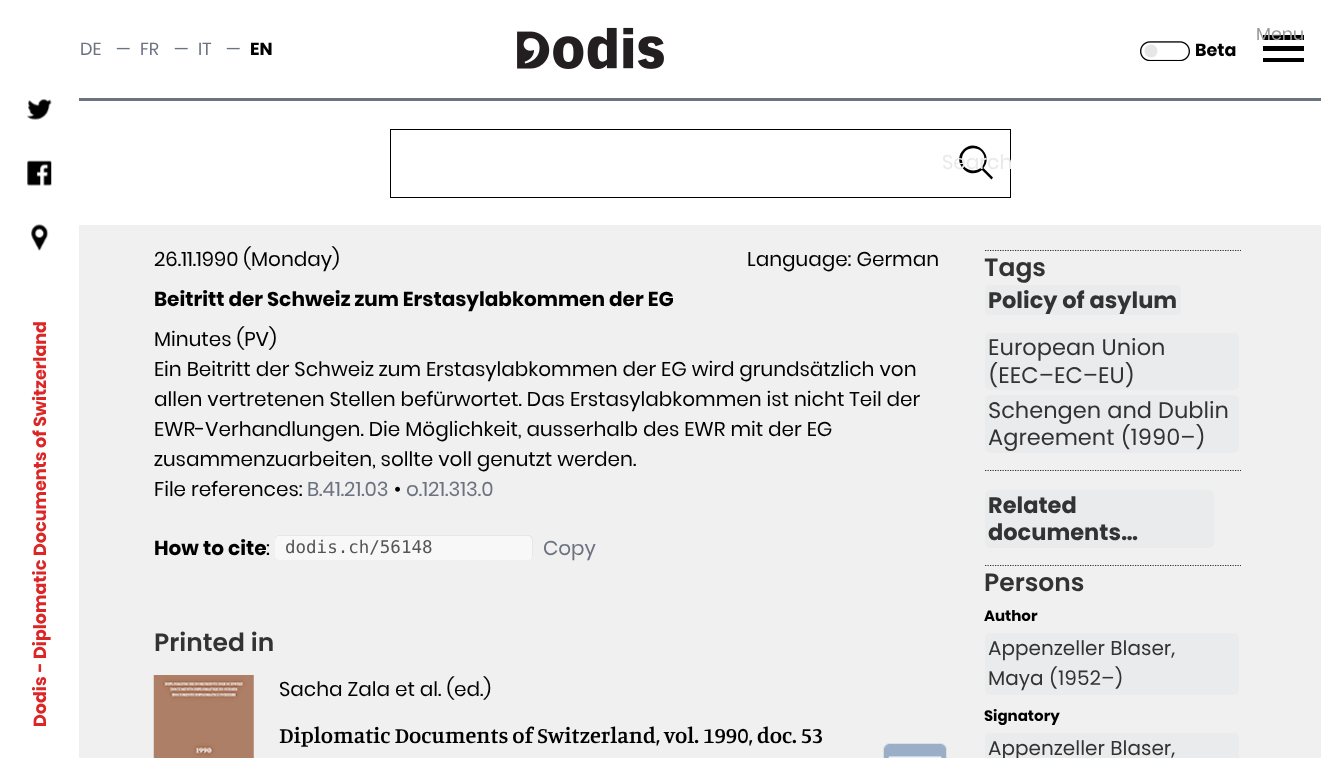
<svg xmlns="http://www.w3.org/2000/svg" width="1321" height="758">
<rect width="100%" height="100%" fill="#fff"/>
<rect x="79" y="98" width="1242" height="3" fill="#6b7280"/>
<text x="80" y="55" style="font-family:Poppins;font-size:17.5px;fill:#6b7280">DE</text>
<text x="116" y="55" style="font-family:Poppins;font-size:17.5px;fill:#6b7280">—</text>
<text x="140" y="55" style="font-family:Poppins;font-size:17.5px;fill:#6b7280">FR</text>
<text x="174" y="55" style="font-family:Poppins;font-size:17.5px;fill:#6b7280">—</text>
<text x="198" y="55" style="font-family:Poppins;font-size:17.5px;fill:#6b7280">IT</text>
<text x="226" y="55" style="font-family:Poppins;font-size:17.5px;fill:#6b7280">—</text>
<text x="250" y="55" style="font-family:Poppins;font-size:17.5px;font-weight:bold;fill:#000">EN</text>
<image x="517" y="27" width="147" height="42" href="media/1.png"/>
<path d="M1304 62h-41v-4h41zm0-11h-41v-5h41zm0-11h-41v-5h41z" fill="#000"/>
<text x="1256" y="40" style="font-family:Poppins;font-size:17.5px;fill:#999">Menu</text>
<image x="1140" y="41" width="50" height="20" href="media/2.png"/>
<text x="1195" y="56" style="font-family:Poppins;font-size:17.5px;font-weight:bold;fill:#000">Beta</text>
<image x="27" y="99" width="25" height="21" href="media/3.png"/>
<image x="27" y="160" width="25" height="26" href="media/4.png"/>
<image x="31" y="224" width="18" height="27" href="media/5.png"/>
<text x="46" y="672" transform="rotate(-90 46 672)" style="font-family:Poppins;font-size:17.5px;font-weight:bold;fill:#dc2626">- Diplomatic Documents of Switzerland</text>
<text x="46" y="727" transform="rotate(-90 46 727)" style="font-family:Poppins;font-size:17.5px;font-weight:bold;fill:#dc2626">Dodis</text>
<rect x="390.5" y="129.5" width="620" height="68" fill="none" stroke="#000"/>
<path d="M993 177.5l-9.5-9.5c11-13-8-30.5-20-18.5c-12.5 12.5 5 31.5 18.5 20.5l9.5 9.5zm-31-18c0-15 22.5-15 22.5 0c0 14.5-22.5 14.5-22.5 0z" fill="#000"/>
<text x="942" y="169" style="font-family:Poppins;font-size:20px;fill:#e9e9e9">Search</text>
<rect x="79" y="225" width="1242" height="533" fill="#f0f0f0"/>
<text x="154" y="266" style="font-family:Poppins;font-size:20px;fill:#000">26.11.1990 (Monday)</text>
<text x="747" y="266" style="font-family:Poppins;font-size:20px;fill:#000">Language: German</text>
<text x="154" y="306" style="font-family:Poppins;font-size:20px;font-weight:bold;fill:#000">Beitritt der Schweiz zum Erstasylabkommen der EG</text>
<text x="154" y="346" style="font-family:Poppins;font-size:20px;fill:#000">Minutes (PV)</text>
<text x="154" y="376" style="font-family:Poppins;font-size:20px;fill:#000">Ein Beitritt der Schweiz zum Erstasylabkommen der EG wird grundsätzlich von</text>
<text x="154" y="406" style="font-family:Poppins;font-size:20px;fill:#000">allen vertretenen Stellen befürwortet. Das Erstasylabkommen ist nicht Teil der</text>
<text x="154" y="436" style="font-family:Poppins;font-size:20px;fill:#000">EWR-Verhandlungen. Die Möglichkeit, ausserhalb des EWR mit der EG</text>
<text x="154" y="466" style="font-family:Poppins;font-size:20px;fill:#000">zusammenzuarbeiten, sollte voll genutzt werden.</text>
<text x="154" y="496" style="font-family:Poppins;font-size:20px;fill:#000">File references:</text>
<text x="307" y="496" style="font-family:Poppins;font-size:20px;fill:#6b7280">B.41.21.03</text>
<text x="394" y="496" style="font-family:Poppins;font-size:20px;fill:#000">•</text>
<text x="406" y="496" style="font-family:Poppins;font-size:20px;fill:#6b7280">o.121.313.0</text>
<text x="154" y="555" style="font-family:Poppins;font-size:20px;font-weight:bold;fill:#000">How to cite</text>
<text x="266" y="555" style="font-family:Poppins;font-size:20px;fill:#000">:</text>
<rect x="275" y="535" width="258" height="25" rx="5" fill="#f8f8f8"/>
<path d="M280 536h248c2 0 4 2 4 5v15l-1 3c1-1 2-3 2-4v-15c0-3-2-5-5-5h-248c-3 0-5 2-5 5v1c0-3 2-5 5-5z" fill="#00000012"/>
<text x="285" y="553" style="font-family:DejaVu Sans Mono;font-size:17.5px;fill:#555">dodis.ch/56148</text>
<text x="543" y="555" style="font-family:Poppins;font-size:20px;fill:#6b7280">Copy</text>
<text x="154" y="651" style="font-family:Poppins;font-size:25px;font-weight:600;fill:#333">Printed in</text>
<image x="153" y="675" width="101" height="83" href="media/6.png"/>
<text x="279" y="696" style="font-family:Poppins;font-size:20px;fill:#000">Sacha Zala et al. (ed.)</text>
<text x="279" y="743" style="font-family:Manuale;font-size:22.5px;font-weight:600;fill:#000">Diplomatic Documents of Switzerland, vol. 1990, doc. 53</text>
<image x="883" y="743" width="64" height="15" href="media/7.png"/>
<path d="M985 250.5h256" fill="none" stroke="#333" stroke-width="1.2" stroke-dasharray="1.25 1.25"/>
<text x="984" y="276" style="font-family:Poppins;font-size:25px;font-weight:600;fill:#333">Tags</text>
<rect x="985" y="285" width="196" height="30" rx="5" fill="#eaebec"/>
<text x="988" y="308" style="font-family:'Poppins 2';font-size:22.5px;font-weight:bold;fill:#333">Policy of asylum</text>
<rect x="985" y="333" width="254" height="57" rx="5" fill="#eaebec"/>
<text x="988" y="355" style="font-family:'Poppins 2';font-size:22.5px;fill:#333">European Union</text>
<text x="988" y="383" style="font-family:'Poppins 2';font-size:22.5px;fill:#333">(EEC–EC–EU)</text>
<rect x="985" y="395" width="254" height="58" rx="5" fill="#eaebec"/>
<text x="988" y="418" style="font-family:'Poppins 2';font-size:22.5px;fill:#333">Schengen and Dublin</text>
<text x="988" y="445" style="font-family:'Poppins 2';font-size:22.5px;fill:#333">Agreement (1990–)</text>
<path d="M985 470.5h256" fill="none" stroke="#333" stroke-width="1.2" stroke-dasharray="1.25 1.25"/>
<rect x="985" y="490" width="229" height="58" rx="5" fill="#eaebec"/>
<text x="988" y="513" style="font-family:'Poppins 2';font-size:22.5px;font-weight:bold;fill:#333">Related</text>
<text x="988" y="540" style="font-family:'Poppins 2';font-size:22.5px;font-weight:bold;fill:#333">documents…</text>
<path d="M985 565.5h256" fill="none" stroke="#333" stroke-width="1.2" stroke-dasharray="1.25 1.25"/>
<text x="984" y="591" style="font-family:Poppins;font-size:25px;font-weight:600;fill:#333">Persons</text>
<text x="984" y="621" style="font-family:Poppins;font-size:15px;font-weight:bold;fill:#000">Author</text>
<rect x="985" y="633" width="254" height="62" rx="5" fill="#eaebec"/>
<text x="988" y="655" style="font-family:'Poppins 2';font-size:20px;fill:#333">Appenzeller Blaser,</text>
<text x="988" y="685" style="font-family:'Poppins 2';font-size:20px;fill:#333">Maya (1952–)</text>
<text x="984" y="721" style="font-family:Poppins;font-size:15px;font-weight:bold;fill:#000">Signatory</text>
<rect x="985" y="733" width="254" height="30" rx="5" fill="#eaebec"/>
<text x="988" y="755" style="font-family:'Poppins 2';font-size:20px;fill:#333">Appenzeller Blaser,</text>
</svg>
